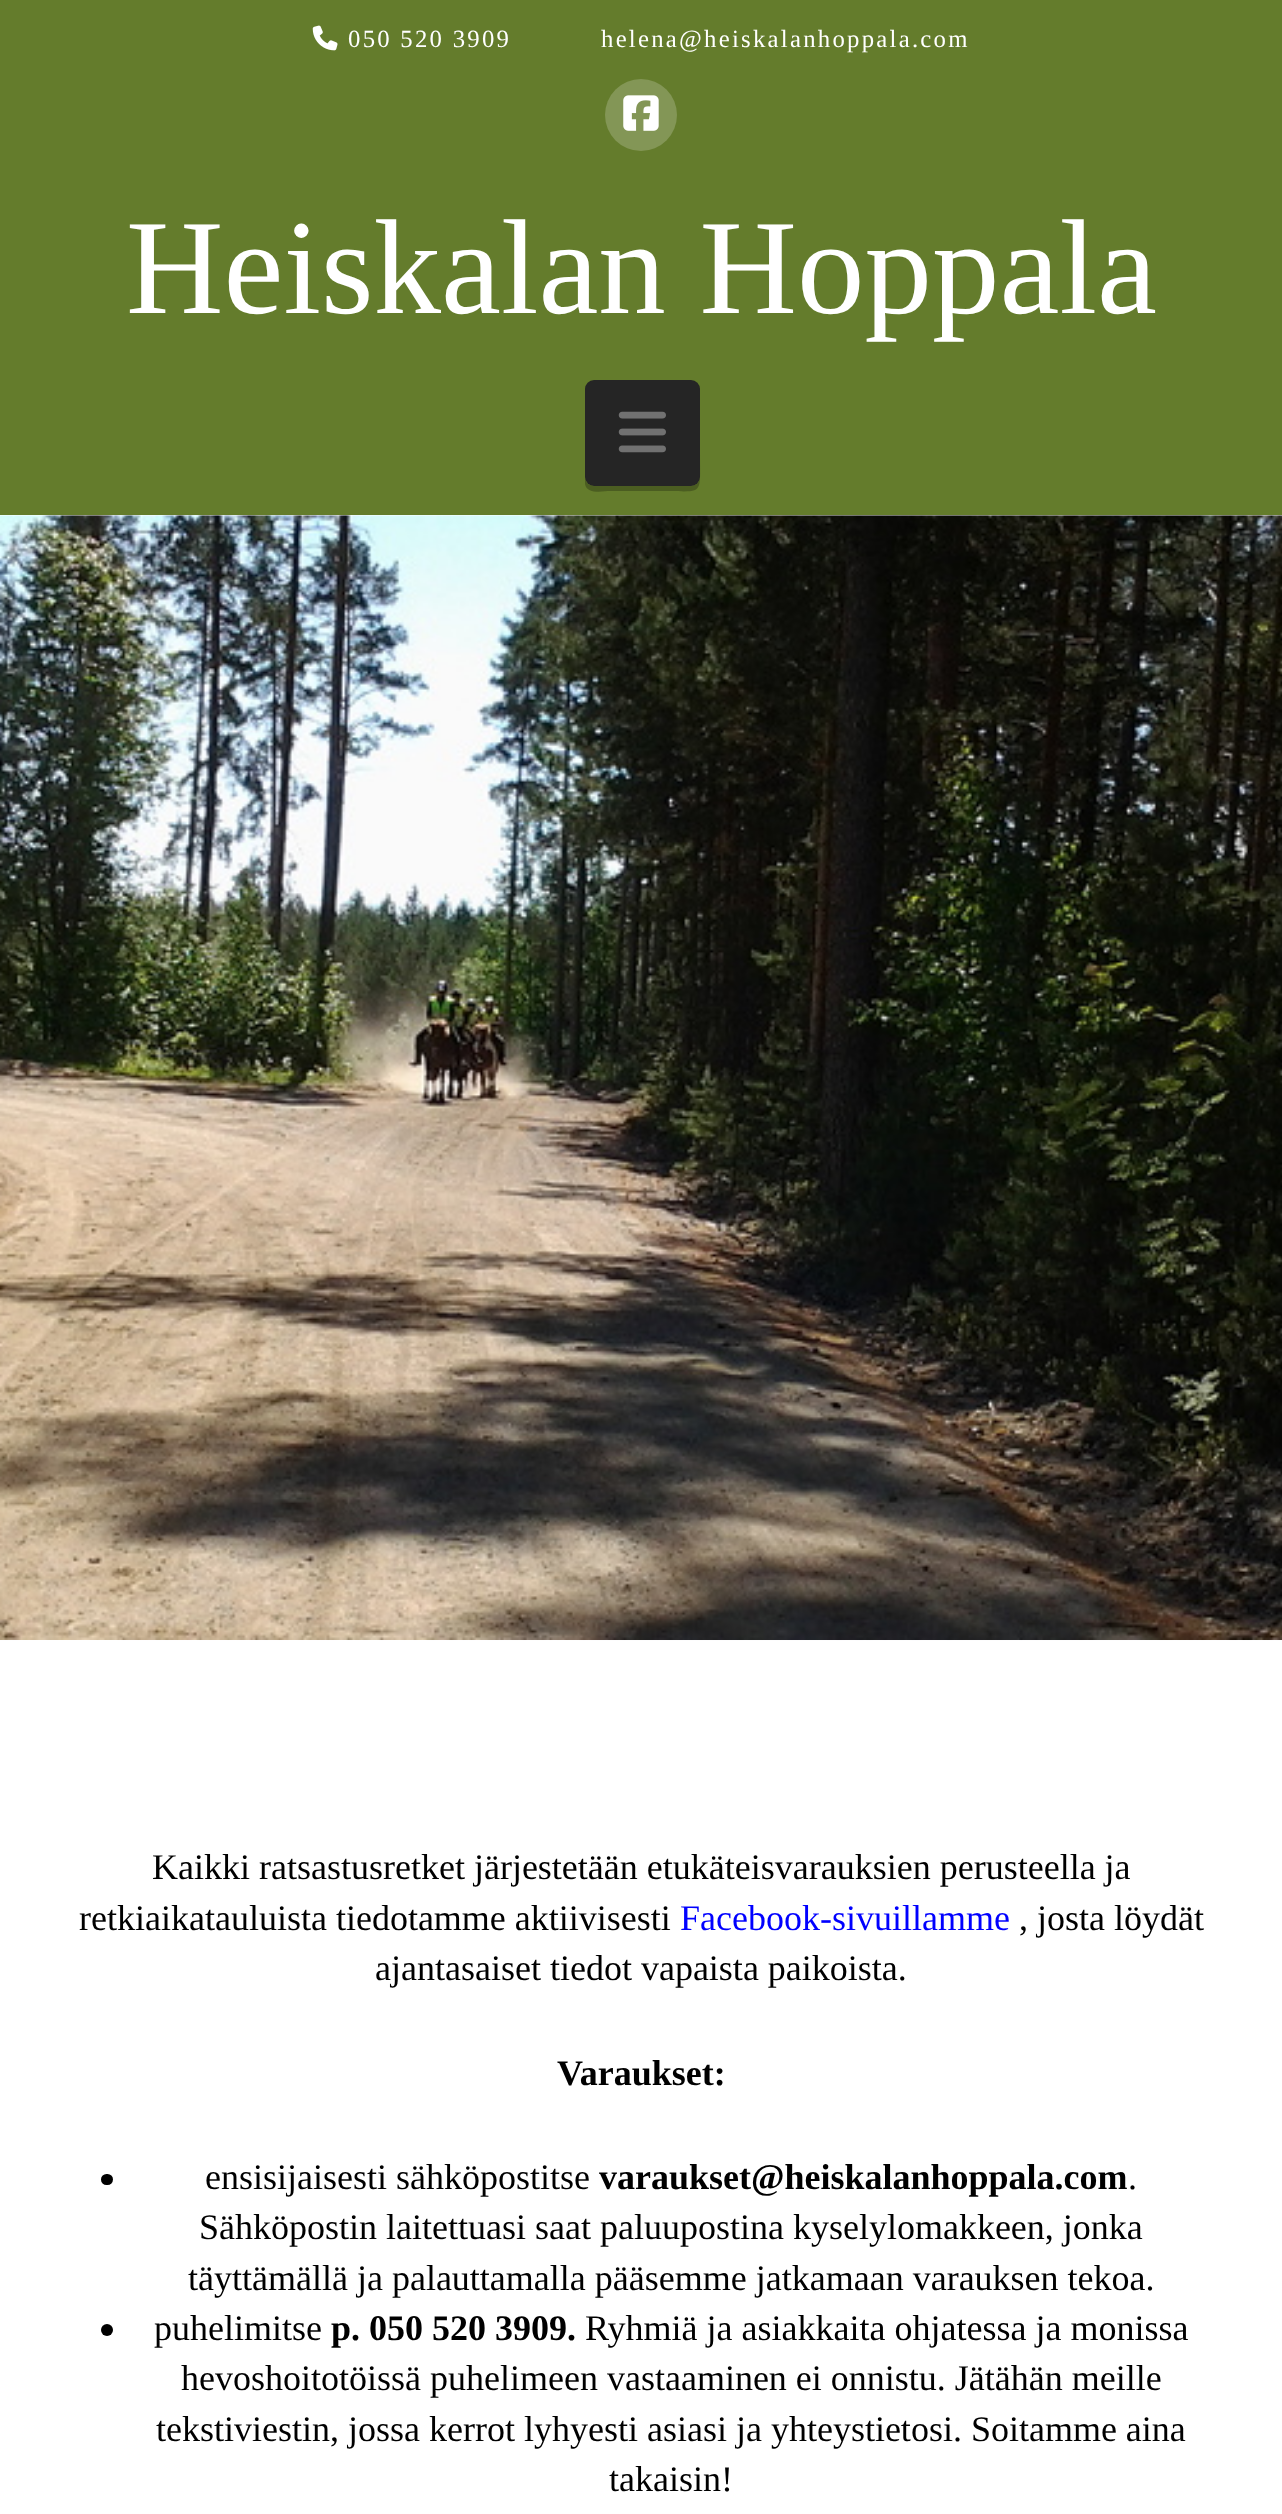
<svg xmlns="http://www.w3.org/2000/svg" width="1282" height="2514">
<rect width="100%" height="100%" fill="#fff"/>
<rect width="1282" height="515" fill="#647c2c"/>
<image x="312" y="25" width="26" height="26" href="media/1.png"/>
<text x="348" y="47" style="font-family:Liberation Serif;font-size:24.75px;letter-spacing:2.25px;fill:#fff">050 520 3909</text>
<text x="601" y="47" style="font-family:Liberation Serif;font-size:24.75px;letter-spacing:2.25px;fill:#fff">helena@heiskalanhoppala.com</text>
<circle cx="641" cy="115" r="36" fill="#839656"/>
<image x="623" y="95" width="36" height="36" href="media/2.png"/>
<text x="126" y="313" style="font-family:Liberation Serif;font-size:135px;fill:#fff">Heiskalan Hoppala</text>
<path d="M585 477v7c2 11 19 7 25 7h49c46 0 41 7 41-38v-61v85c0 5-4 9-9 9h-97c-5 0-9-4-9-9z" fill="#4b5d21"/>
<rect x="585" y="380" width="115" height="106" rx="9" fill="#252525"/>
<image x="618" y="411" width="48" height="42" href="media/3.png"/>
<image x="0" y="515" width="1282" height="1126" href="media/4.png"/>
<rect y="1640" width="1282" height="1" fill="#ffffffcf"/>
<text x="152" y="1879" style="font-family:Liberation Serif;font-size:36px;fill:#000">Kaikki ratsastusretket järjestetään etukäteisvarauksien perusteella ja</text>
<text x="79" y="1930" style="font-family:Liberation Serif;font-size:36px;fill:#000">retkiaikatauluista tiedotamme aktiivisesti</text>
<text x="680" y="1930" style="font-family:Liberation Serif;font-size:36px;fill:#00f">Facebook-sivuillamme</text>
<text x="1019" y="1930" style="font-family:Liberation Serif;font-size:36px;fill:#000">, josta löydät</text>
<text x="375" y="1980" style="font-family:Liberation Serif;font-size:36px;fill:#000">ajantasaiset tiedot vapaista paikoista.</text>
<text x="557" y="2085" style="font-family:Liberation Serif;font-size:36px;font-weight:bold;fill:#000">Varaukset:</text>
<rect x="101" y="2174" width="12" height="11" rx="5.5" fill="#000"/>
<text x="205" y="2189" style="font-family:Liberation Serif;font-size:36px;fill:#000">ensisijaisesti sähköpostitse</text>
<text x="599" y="2189" style="font-family:Liberation Serif;font-size:36px;font-weight:bold;fill:#000">varaukset@heiskalanhoppala.com</text>
<text x="1128" y="2189" style="font-family:Liberation Serif;font-size:36px;fill:#000">.</text>
<text x="199" y="2239" style="font-family:Liberation Serif;font-size:36px;fill:#000">Sähköpostin laitettuasi saat paluupostina kyselylomakkeen, jonka</text>
<text x="188" y="2290" style="font-family:Liberation Serif;font-size:36px;fill:#000">täyttämällä ja palauttamalla pääsemme jatkamaan varauksen tekoa.</text>
<circle cx="107" cy="2330" r="6" fill="#000"/>
<text x="154" y="2340" style="font-family:Liberation Serif;font-size:36px;fill:#000">puhelimitse</text>
<text x="331" y="2340" style="font-family:Liberation Serif;font-size:36px;font-weight:bold;fill:#000">p. 050 520 3909.</text>
<text x="585" y="2340" style="font-family:Liberation Serif;font-size:36px;fill:#000">Ryhmiä ja asiakkaita ohjatessa ja monissa</text>
<text x="181" y="2390" style="font-family:Liberation Serif;font-size:36px;fill:#000">hevoshoitotöissä puhelimeen vastaaminen ei onnistu. Jätähän meille</text>
<text x="156" y="2441" style="font-family:Liberation Serif;font-size:36px;fill:#000">tekstiviestin, jossa kerrot lyhyesti asiasi ja yhteystietosi. Soitamme aina</text>
<text x="609" y="2491" style="font-family:Liberation Serif;font-size:36px;fill:#000">takaisin!</text>
</svg>
